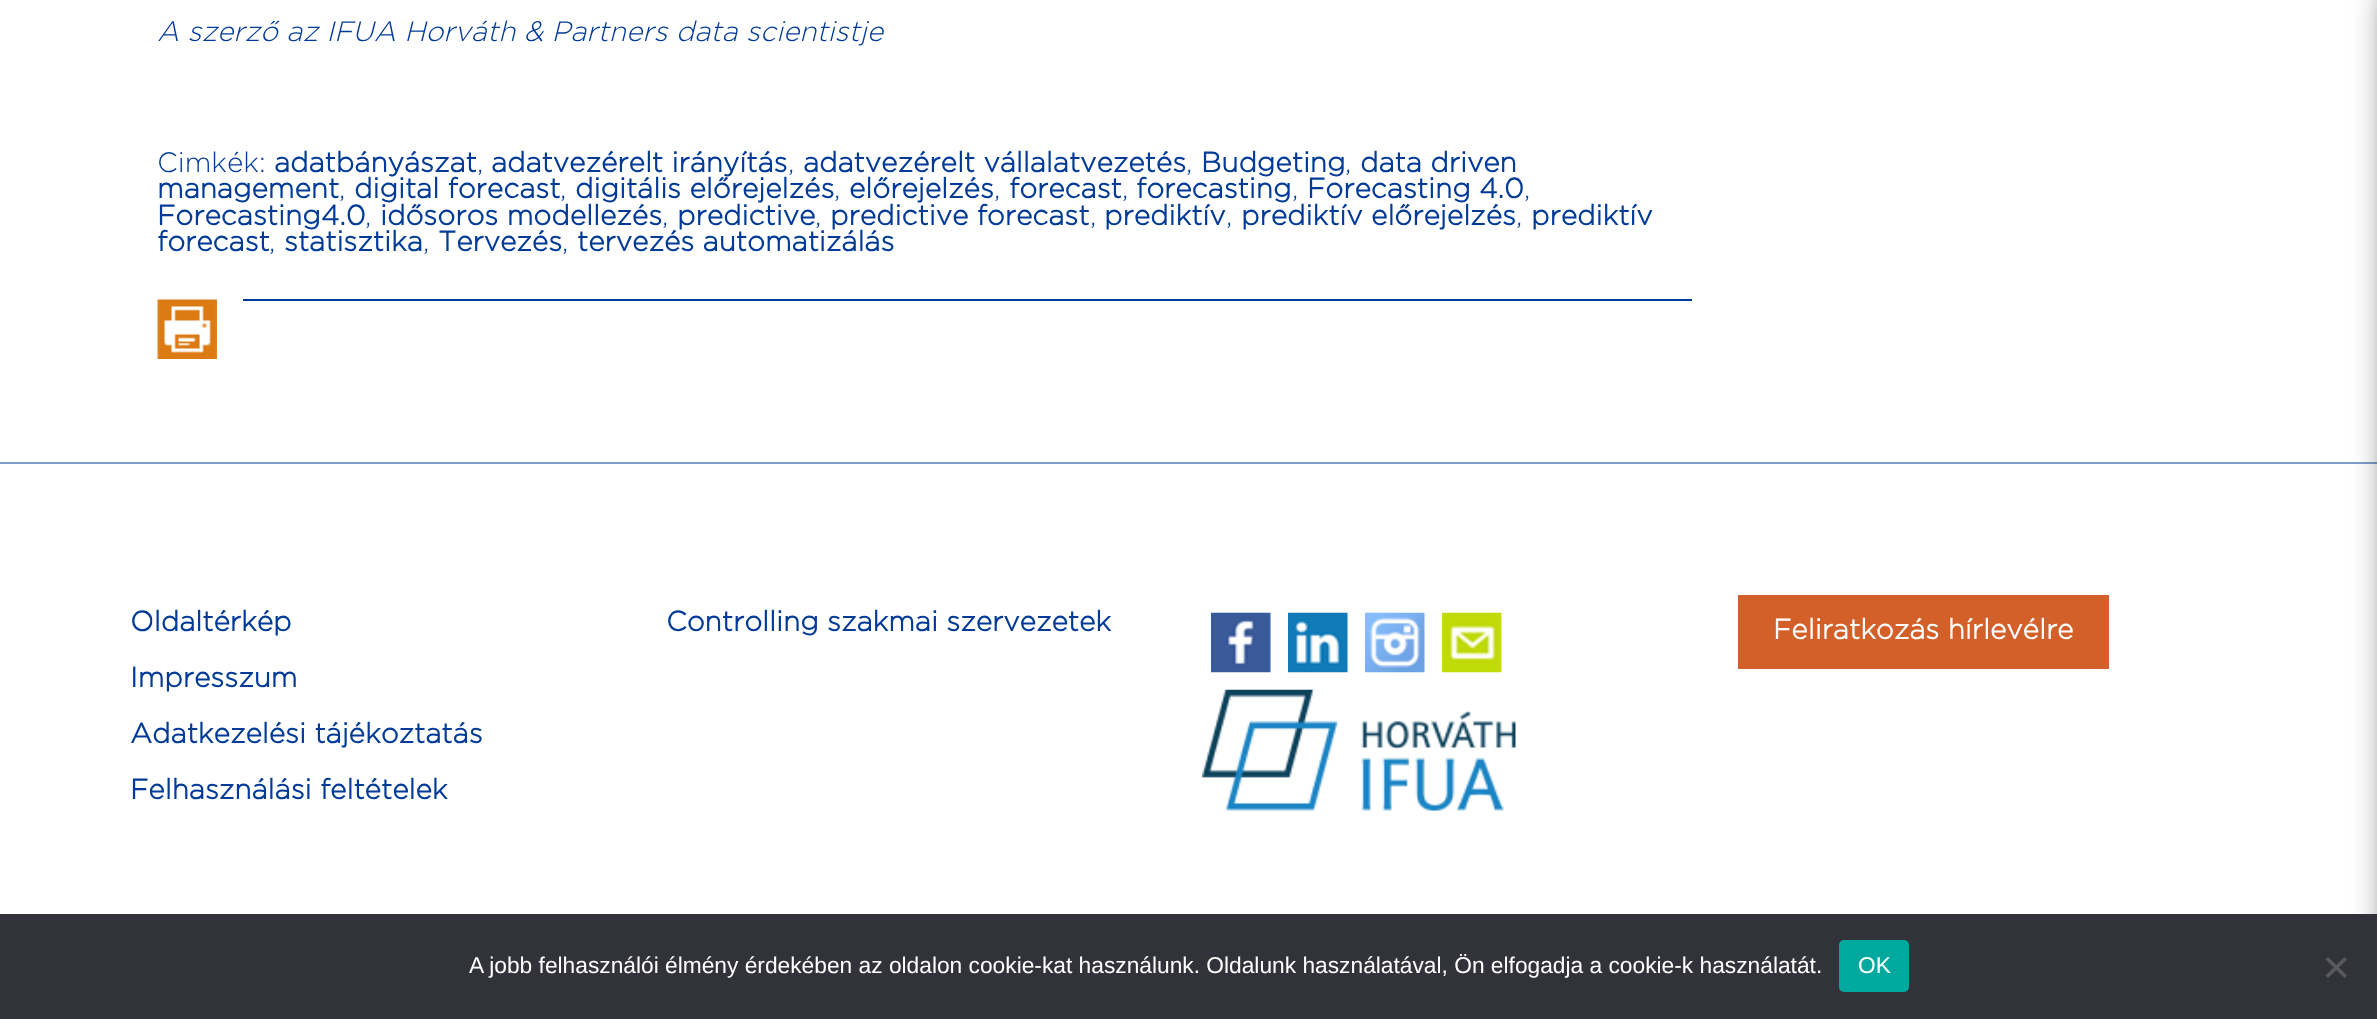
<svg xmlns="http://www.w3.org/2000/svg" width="2377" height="1019">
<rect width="100%" height="100%" fill="#fff"/>
<rect y="462" width="2377" height="2" fill="#819eca"/>
<text x="157" y="41" style="font-family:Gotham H;font-size:28px;font-weight:300;font-style:italic;fill:#013a97">A szerző az IFUA Horváth &amp; Partners data scientistje</text>
<text x="157" y="172" style="font-family:Gotham H;font-size:28px;font-weight:300;fill:#013a97">Cimkék:</text>
<text x="274" y="172" style="font-family:Gotham H;font-size:28px;font-weight:bold;fill:#013a97">adatbányászat</text>
<text x="477" y="172" style="font-family:Gotham H;font-size:28px;font-weight:300;fill:#013a97">,</text>
<text x="491" y="172" style="font-family:Gotham H;font-size:28px;font-weight:bold;fill:#013a97">adatvezérelt irányítás</text>
<text x="788" y="172" style="font-family:Gotham H;font-size:28px;font-weight:300;fill:#013a97">,</text>
<text x="803" y="172" style="font-family:Gotham H;font-size:28px;font-weight:bold;fill:#013a97">adatvezérelt vállalatvezetés</text>
<text x="1186" y="172" style="font-family:Gotham H;font-size:28px;font-weight:300;fill:#013a97">,</text>
<text x="1201" y="172" style="font-family:Gotham H;font-size:28px;font-weight:bold;fill:#013a97">Budgeting</text>
<text x="1345" y="172" style="font-family:Gotham H;font-size:28px;font-weight:300;fill:#013a97">,</text>
<text x="1360" y="172" style="font-family:Gotham H;font-size:28px;font-weight:bold;fill:#013a97">data driven</text>
<text x="157" y="198" style="font-family:Gotham H;font-size:28px;font-weight:bold;fill:#013a97">management</text>
<text x="339" y="198" style="font-family:Gotham H;font-size:28px;font-weight:300;fill:#013a97">,</text>
<text x="354" y="198" style="font-family:Gotham H;font-size:28px;font-weight:bold;fill:#013a97">digital forecast</text>
<text x="560" y="198" style="font-family:Gotham H;font-size:28px;font-weight:300;fill:#013a97">,</text>
<text x="575" y="198" style="font-family:Gotham H;font-size:28px;font-weight:bold;fill:#013a97">digitális előrejelzés</text>
<text x="834" y="198" style="font-family:Gotham H;font-size:28px;font-weight:300;fill:#013a97">,</text>
<text x="849" y="198" style="font-family:Gotham H;font-size:28px;font-weight:bold;fill:#013a97">előrejelzés</text>
<text x="994" y="198" style="font-family:Gotham H;font-size:28px;font-weight:300;fill:#013a97">,</text>
<text x="1009" y="198" style="font-family:Gotham H;font-size:28px;font-weight:bold;fill:#013a97">forecast</text>
<text x="1122" y="198" style="font-family:Gotham H;font-size:28px;font-weight:300;fill:#013a97">,</text>
<text x="1136" y="198" style="font-family:Gotham H;font-size:28px;font-weight:bold;fill:#013a97">forecasting</text>
<text x="1292" y="198" style="font-family:Gotham H;font-size:28px;font-weight:300;fill:#013a97">,</text>
<text x="1307" y="198" style="font-family:Gotham H;font-size:28px;font-weight:bold;fill:#013a97">Forecasting 4.0</text>
<text x="1524" y="198" style="font-family:Gotham H;font-size:28px;font-weight:300;fill:#013a97">,</text>
<text x="157" y="225" style="font-family:Gotham H;font-size:28px;font-weight:bold;fill:#013a97">Forecasting4.0</text>
<text x="365" y="225" style="font-family:Gotham H;font-size:28px;font-weight:300;fill:#013a97">,</text>
<text x="380" y="225" style="font-family:Gotham H;font-size:28px;font-weight:bold;fill:#013a97">idősoros modellezés</text>
<text x="662" y="225" style="font-family:Gotham H;font-size:28px;font-weight:300;fill:#013a97">,</text>
<text x="677" y="225" style="font-family:Gotham H;font-size:28px;font-weight:bold;fill:#013a97">predictive</text>
<text x="815" y="225" style="font-family:Gotham H;font-size:28px;font-weight:300;fill:#013a97">,</text>
<text x="830" y="225" style="font-family:Gotham H;font-size:28px;font-weight:bold;fill:#013a97">predictive forecast</text>
<text x="1090" y="225" style="font-family:Gotham H;font-size:28px;font-weight:300;fill:#013a97">,</text>
<text x="1104" y="225" style="font-family:Gotham H;font-size:28px;font-weight:bold;fill:#013a97">prediktív</text>
<text x="1226" y="225" style="font-family:Gotham H;font-size:28px;font-weight:300;fill:#013a97">,</text>
<text x="1241" y="225" style="font-family:Gotham H;font-size:28px;font-weight:bold;fill:#013a97">prediktív előrejelzés</text>
<text x="1516" y="225" style="font-family:Gotham H;font-size:28px;font-weight:300;fill:#013a97">,</text>
<text x="1531" y="225" style="font-family:Gotham H;font-size:28px;font-weight:bold;fill:#013a97">prediktív</text>
<text x="157" y="251" style="font-family:Gotham H;font-size:28px;font-weight:bold;fill:#013a97">forecast</text>
<text x="269" y="251" style="font-family:Gotham H;font-size:28px;font-weight:300;fill:#013a97">,</text>
<text x="284" y="251" style="font-family:Gotham H;font-size:28px;font-weight:bold;fill:#013a97">statisztika</text>
<text x="423" y="251" style="font-family:Gotham H;font-size:28px;font-weight:300;fill:#013a97">,</text>
<text x="438" y="251" style="font-family:Gotham H;font-size:28px;font-weight:bold;fill:#013a97">Tervezés</text>
<text x="562" y="251" style="font-family:Gotham H;font-size:28px;font-weight:300;fill:#013a97">,</text>
<text x="577" y="251" style="font-family:Gotham H;font-size:28px;font-weight:bold;fill:#013a97">tervezés automatizálás</text>
<image x="157" y="299" width="60" height="60" href="media/1.png"/>
<rect x="243" y="299" width="1449" height="2" fill="#013a97"/>
<rect x="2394" y="-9" width="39" height="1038" fill="#000" filter="blur(18.5px)"/>
<text x="130" y="631" style="font-family:Gotham H;font-size:28px;font-weight:bold;fill:#013a97">Oldaltérkép</text>
<text x="130" y="687" style="font-family:Gotham H;font-size:28px;font-weight:bold;fill:#013a97">Impresszum</text>
<text x="130" y="743" style="font-family:Gotham H;font-size:28px;font-weight:bold;fill:#013a97">Adatkezelési tájékoztatás</text>
<text x="130" y="799" style="font-family:Gotham H;font-size:28px;font-weight:bold;fill:#013a97">Felhasználási feltételek</text>
<text x="666" y="631" style="font-family:Gotham H;font-size:28px;font-weight:bold;fill:#013a97">Controlling szakmai szervezetek</text>
<image x="1211" y="612" width="60" height="61" href="media/2.png"/>
<image x="1288" y="612" width="60" height="61" href="media/3.png"/>
<image x="1365" y="612" width="60" height="61" href="media/4.png"/>
<image x="1442" y="612" width="60" height="61" href="media/5.png"/>
<image x="1202" y="689" width="314" height="122" href="media/6.png"/>
<rect x="1738" y="595" width="371" height="74" fill="#d26028"/>
<text x="1773" y="639" style="font-family:Gotham H;font-size:28px;font-weight:bold;fill:#fff">Feliratkozás hírlevélre</text>
<rect y="914" width="2377" height="105" fill="#32323a"/>
<text x="469" y="973" style="font-family:Liberation Sans;font-size:22.75px;fill:#fff">A jobb felhasználói élmény érdekében az oldalon cookie-kat használunk. Oldalunk használatával, Ön elfogadja a cookie-k használatát.</text>
<rect x="1839" y="940" width="70" height="52" rx="5" fill="#00a99d"/>
<text x="1858" y="973" style="font-family:Liberation Sans;font-size:22.75px;fill:#fff">OK</text>
<path d="M2344.5 957l2.5 2.5l-19 18.5l-2.5-2.5z" fill="#59595d"/>
<path d="M2325.5 959.5l2.5-2.5l19 18.5l-2.5 2.5z" fill="#59595d"/>
</svg>
